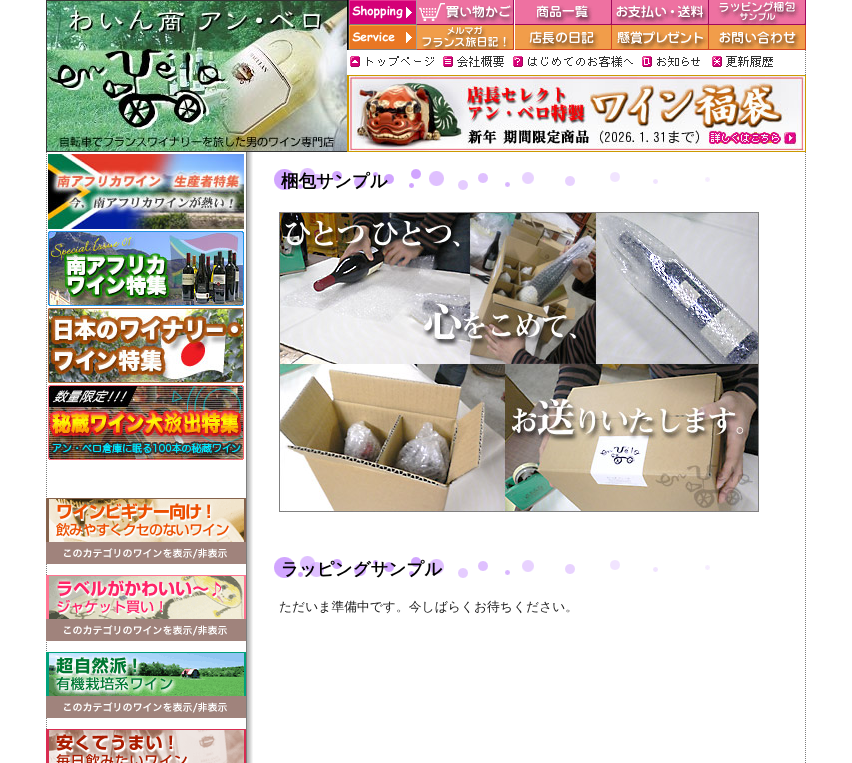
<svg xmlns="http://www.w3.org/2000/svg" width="852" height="763">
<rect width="100%" height="100%" fill="#fff"/>
<image x="46" y="0" width="760" height="763" href="media/1.png"/>
<rect x="46" width="301" height="152" fill="#333"/>
<image x="47" y="1" width="300" height="150" href="media/2.png"/>
<image x="347" y="0" width="70" height="25" href="media/3.png"/>
<image x="417" y="0" width="97" height="25" href="media/4.png"/>
<image x="515" y="0" width="97" height="25" href="media/5.png"/>
<image x="612" y="0" width="97" height="25" href="media/6.png"/>
<image x="709" y="0" width="97" height="25" href="media/7.png"/>
<image x="347" y="25" width="70" height="25" href="media/8.png"/>
<image x="417" y="25" width="97" height="25" href="media/9.png"/>
<image x="515" y="25" width="97" height="25" href="media/10.png"/>
<image x="612" y="25" width="97" height="25" href="media/11.png"/>
<image x="709" y="25" width="97" height="25" href="media/12.png"/>
<image x="350" y="56" width="84" height="11" href="media/13.png"/>
<image x="443" y="56" width="61" height="11" href="media/14.png"/>
<image x="513" y="56" width="120" height="11" href="media/15.png"/>
<image x="642" y="56" width="58" height="11" href="media/16.png"/>
<image x="712" y="56" width="61" height="11" href="media/17.png"/>
<rect x="347" y="75" width="459" height="77" fill="#c90"/>
<image x="349" y="76" width="456" height="75" href="media/18.png"/>
<image x="48" y="154" width="196" height="75" href="media/19.png"/>
<image x="48" y="231" width="196" height="75" href="media/20.png"/>
<image x="48" y="308" width="196" height="75" href="media/21.png"/>
<image x="48" y="385" width="196" height="75" href="media/22.png"/>
<image x="46" y="498" width="200" height="44" href="media/23.png"/>
<image x="46" y="542" width="200" height="22" href="media/24.png"/>
<image x="46" y="575" width="200" height="44" href="media/25.png"/>
<image x="46" y="619" width="200" height="22" href="media/24.png"/>
<image x="46" y="652" width="200" height="44" href="media/26.png"/>
<image x="46" y="696" width="200" height="22" href="media/24.png"/>
<image x="46" y="729" width="200" height="34" href="media/27.png"/>
<image x="274" y="168" width="436" height="22" href="media/28.png"/>
<text x="281" y="187" style="font-family:WenQuanYi Zen Hei;font-size:17.5px;font-weight:bold;fill:#000">梱包サンプル</text>
<image x="279" y="212" width="480" height="300" href="media/29.png"/>
<image x="274" y="556" width="436" height="22" href="media/28.png"/>
<text x="281" y="575" style="font-family:WenQuanYi Zen Hei;font-size:17.5px;font-weight:bold;fill:#000">ラッピングサンプル</text>
<text x="279" y="611" style="font-family:WenQuanYi Zen Hei;font-size:12.8px;font-weight:500;fill:#202020">ただいま準備中です。今しばらくお待ちください。</text>
</svg>
